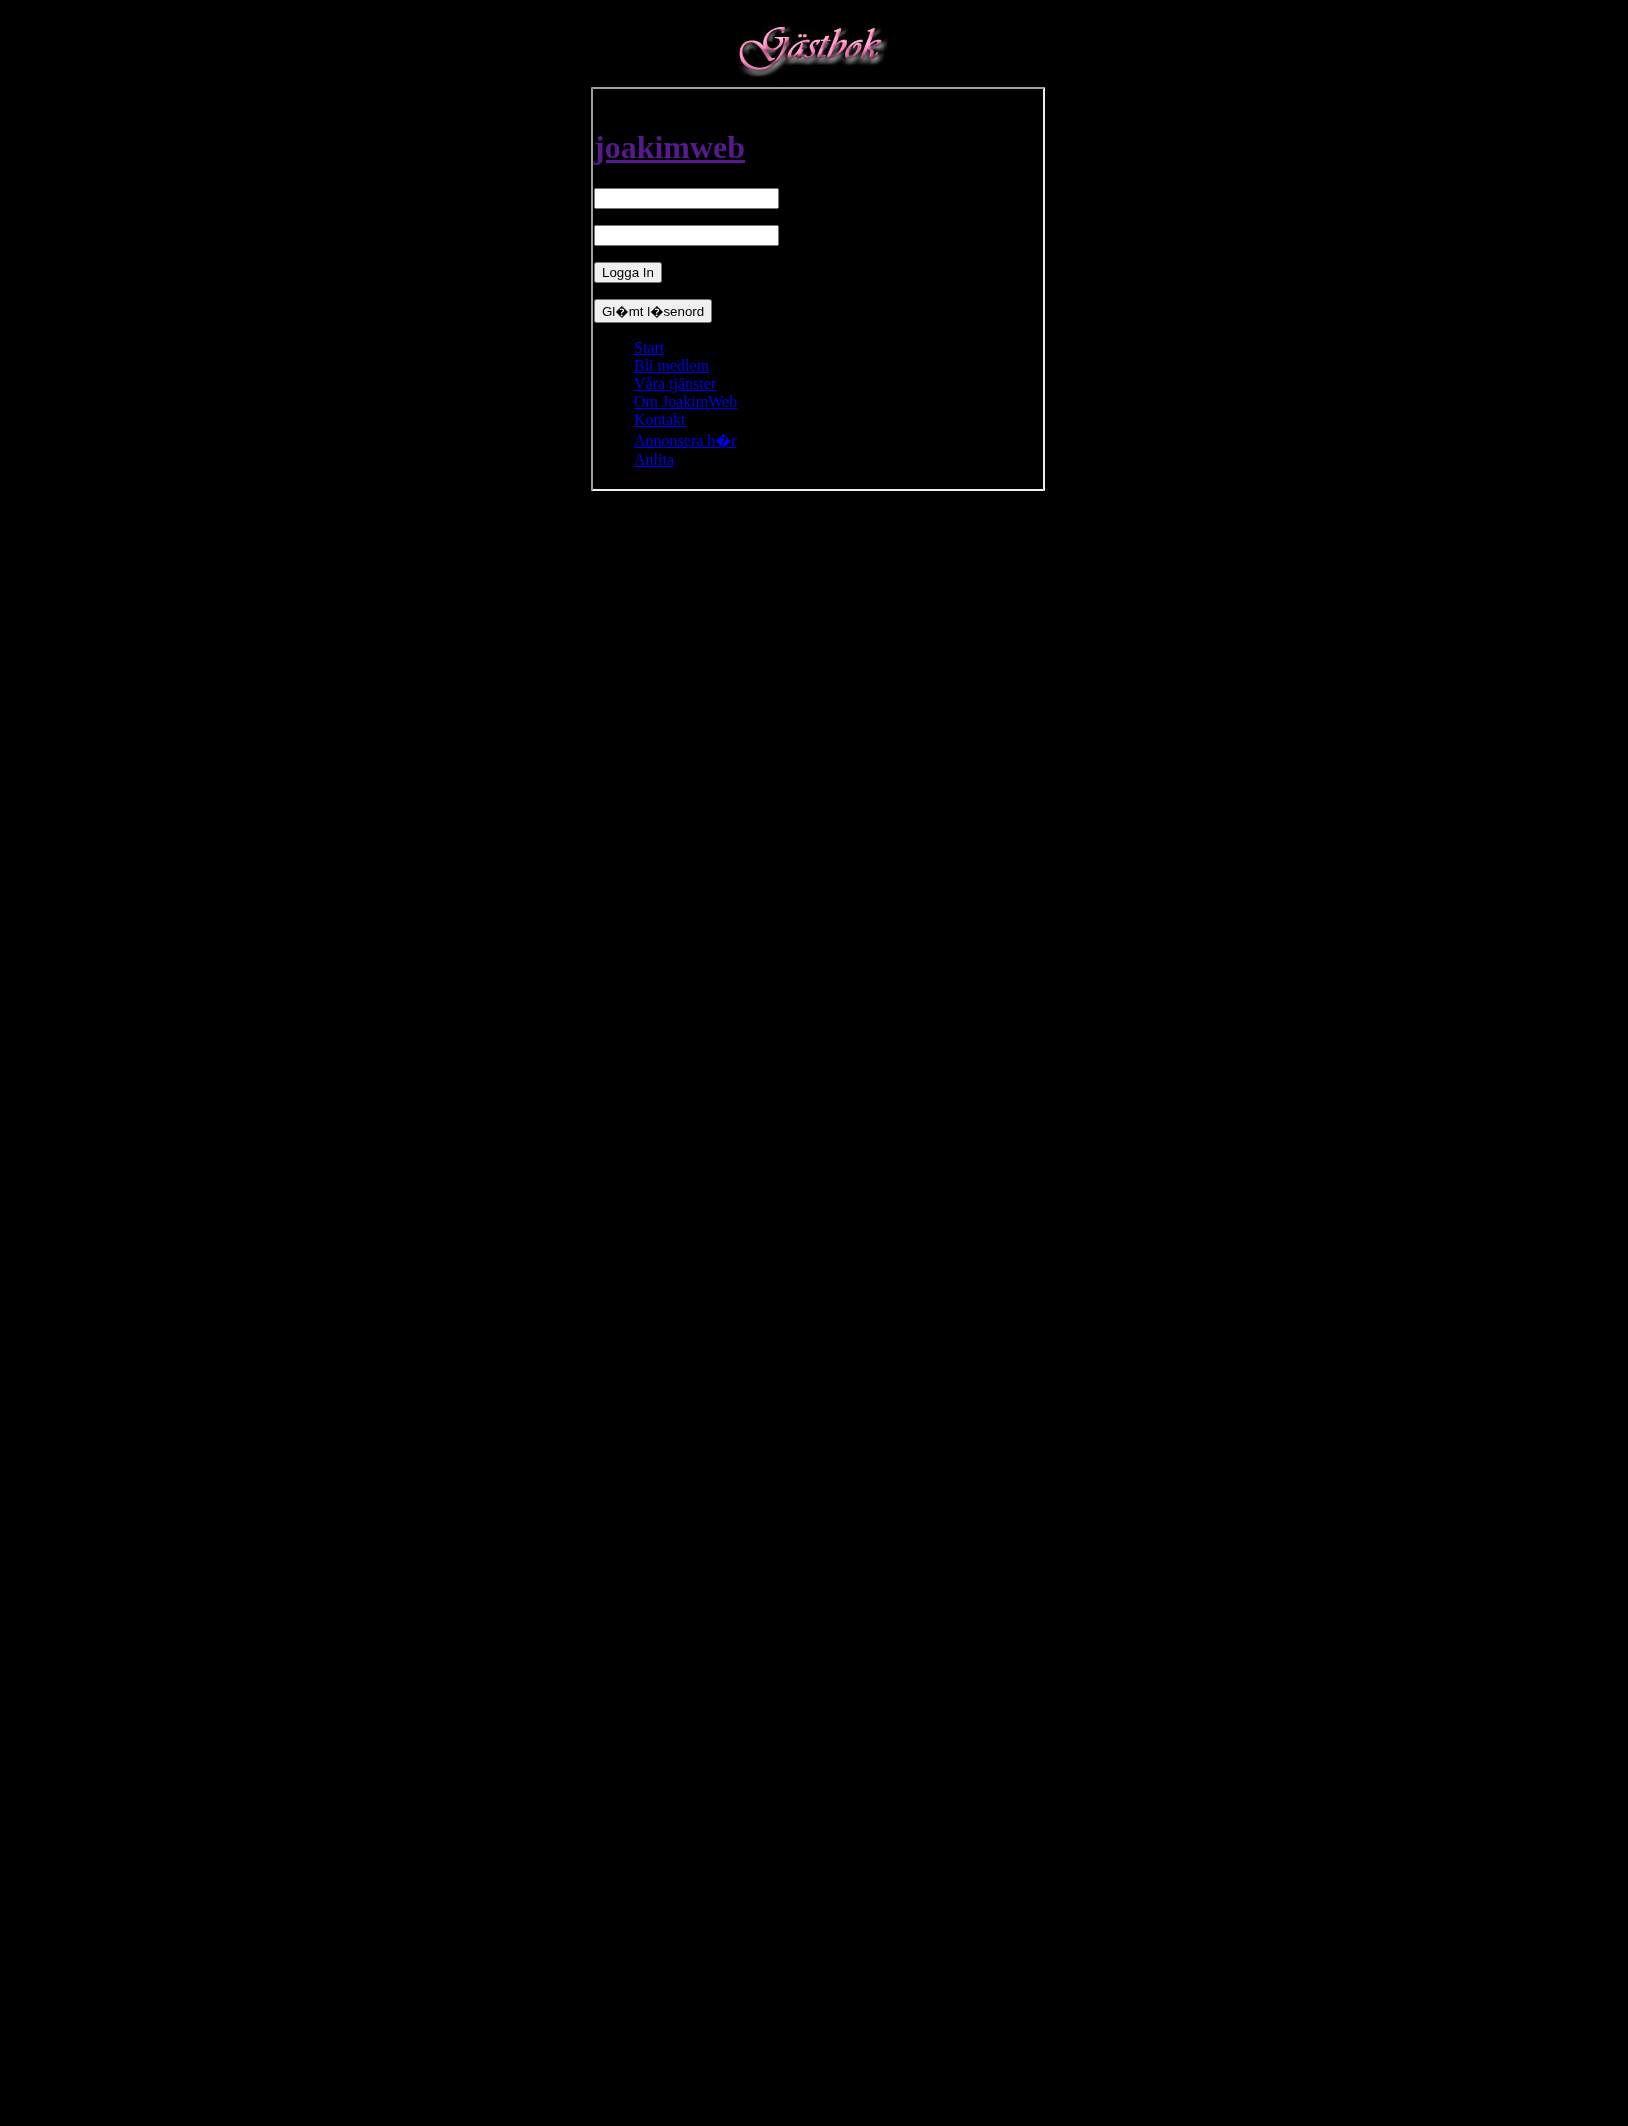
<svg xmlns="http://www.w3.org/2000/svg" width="1628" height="2126">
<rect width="100%" height="100%" fill="#000"/>
<image x="738" y="26" width="150" height="51" href="media/1.png"/>
<path d="M591 87h454l-2 2h-450z" fill="#9f9f9f"/>
<path d="M1045 87v404l-2-2v-400z" fill="#eee"/>
<path d="M1045 491h-454l2-2h450z" fill="#eee"/>
<path d="M591 491v-404l2 2v400z" fill="#9f9f9f"/>
<image x="593" y="136" width="186" height="331" href="media/2.png"/>
</svg>
